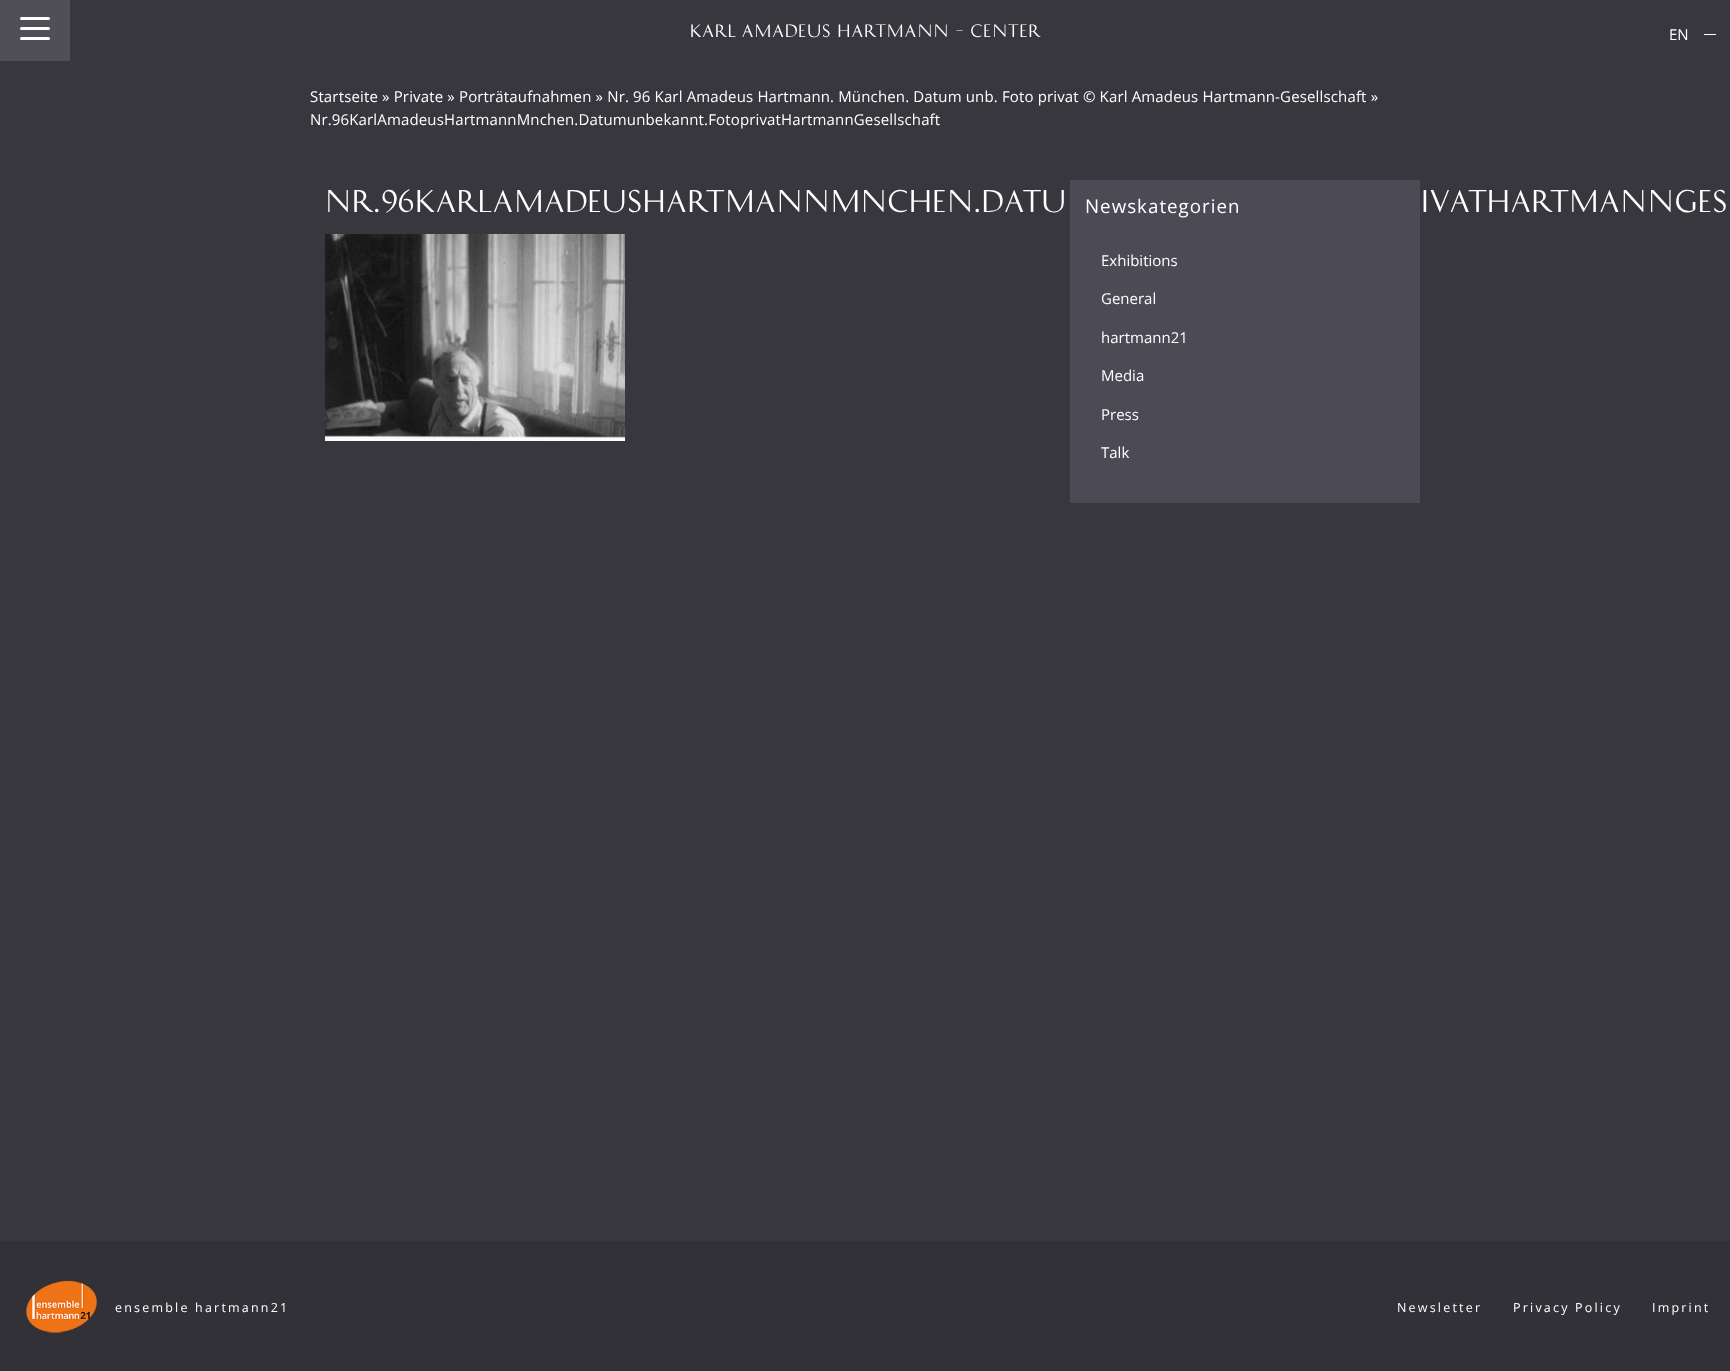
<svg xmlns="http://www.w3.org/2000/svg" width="1730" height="1371">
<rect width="100%" height="100%" fill="#38373d"/>
<rect width="70" height="61" fill="#504e57"/>
<rect x="20" y="37" width="30" height="3" rx="1.5" fill="#fff"/>
<rect x="20" y="17" width="30" height="3" rx="1.5" fill="#fff"/>
<rect x="20" y="27" width="30" height="3" rx="1.5" fill="#fff"/>
<text x="690" y="37" style="font-family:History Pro;font-size:16px;letter-spacing:1.1px;fill:#fff">KARL AMADEUS HARTMANN – CENTER</text>
<text x="1669" y="40" style="font-family:Open Sans;font-size:15px;fill:#fff">EN</text>
<rect x="1704" y="34" width="12" height="1" fill="#fff"/>
<text x="310" y="102" style="font-family:Open Sans;font-size:15px;letter-spacing:0.15px;fill:#fff">Startseite » Private » Porträtaufnahmen » Nr. 96 Karl Amadeus Hartmann. München. Datum unb. Foto privat © Karl Amadeus Hartmann-Gesellschaft »</text>
<text x="310" y="125" style="font-family:Open Sans;font-size:15px;letter-spacing:0.15px;fill:#fff">Nr.96KarlAmadeusHartmannMnchen.Datumunbekannt.FotoprivatHartmannGesellschaft</text>
<text x="325" y="212" style="font-family:History Pro;font-size:27.85px;letter-spacing:1px;fill:#fff">NR.96KARLAMADEUSHARTMANNMNCHEN.DATU</text>
<text x="1421" y="212" style="font-family:History Pro;font-size:27.85px;letter-spacing:1px;fill:#fff">IVATHARTMANNGES</text>
<image x="325" y="234" width="300" height="207" href="media/1.png"/>
<rect x="1070" y="180" width="350" height="323" fill="#4c4a54"/>
<rect x="1085" y="230" width="320" height="1" fill="#504e57"/>
<text x="1085" y="213" style="font-family:Open Sans;font-size:18.75px;letter-spacing:1px;fill:#fff">Newskategorien</text>
<text x="1101" y="266" style="font-family:Open Sans;font-size:15px;fill:#fff">Exhibitions</text>
<text x="1101" y="304" style="font-family:Open Sans;font-size:15px;fill:#fff">General</text>
<text x="1101" y="343" style="font-family:Open Sans;font-size:15px;fill:#fff">hartmann21</text>
<text x="1101" y="381" style="font-family:Open Sans;font-size:15px;fill:#fff">Media</text>
<text x="1101" y="420" style="font-family:Open Sans;font-size:15px;fill:#fff">Press</text>
<text x="1101" y="458" style="font-family:Open Sans;font-size:15px;fill:#fff">Talk</text>
<rect y="1241" width="1730" height="130" fill="#323137"/>
<image x="26" y="1280" width="71" height="53" href="media/2.png"/>
<text x="115" y="1312" style="font-family:Open Sans;font-size:12.5px;letter-spacing:2.2px;fill:#fff">ensemble hartmann21</text>
<text x="1397" y="1312" style="font-family:Open Sans;font-size:12.5px;letter-spacing:2.2px;fill:#fff">Newsletter</text>
<text x="1513" y="1312" style="font-family:Open Sans;font-size:12.5px;letter-spacing:2.2px;fill:#fff">Privacy Policy</text>
<text x="1652" y="1312" style="font-family:Open Sans;font-size:12.5px;letter-spacing:2.2px;fill:#fff">Imprint</text>
</svg>
